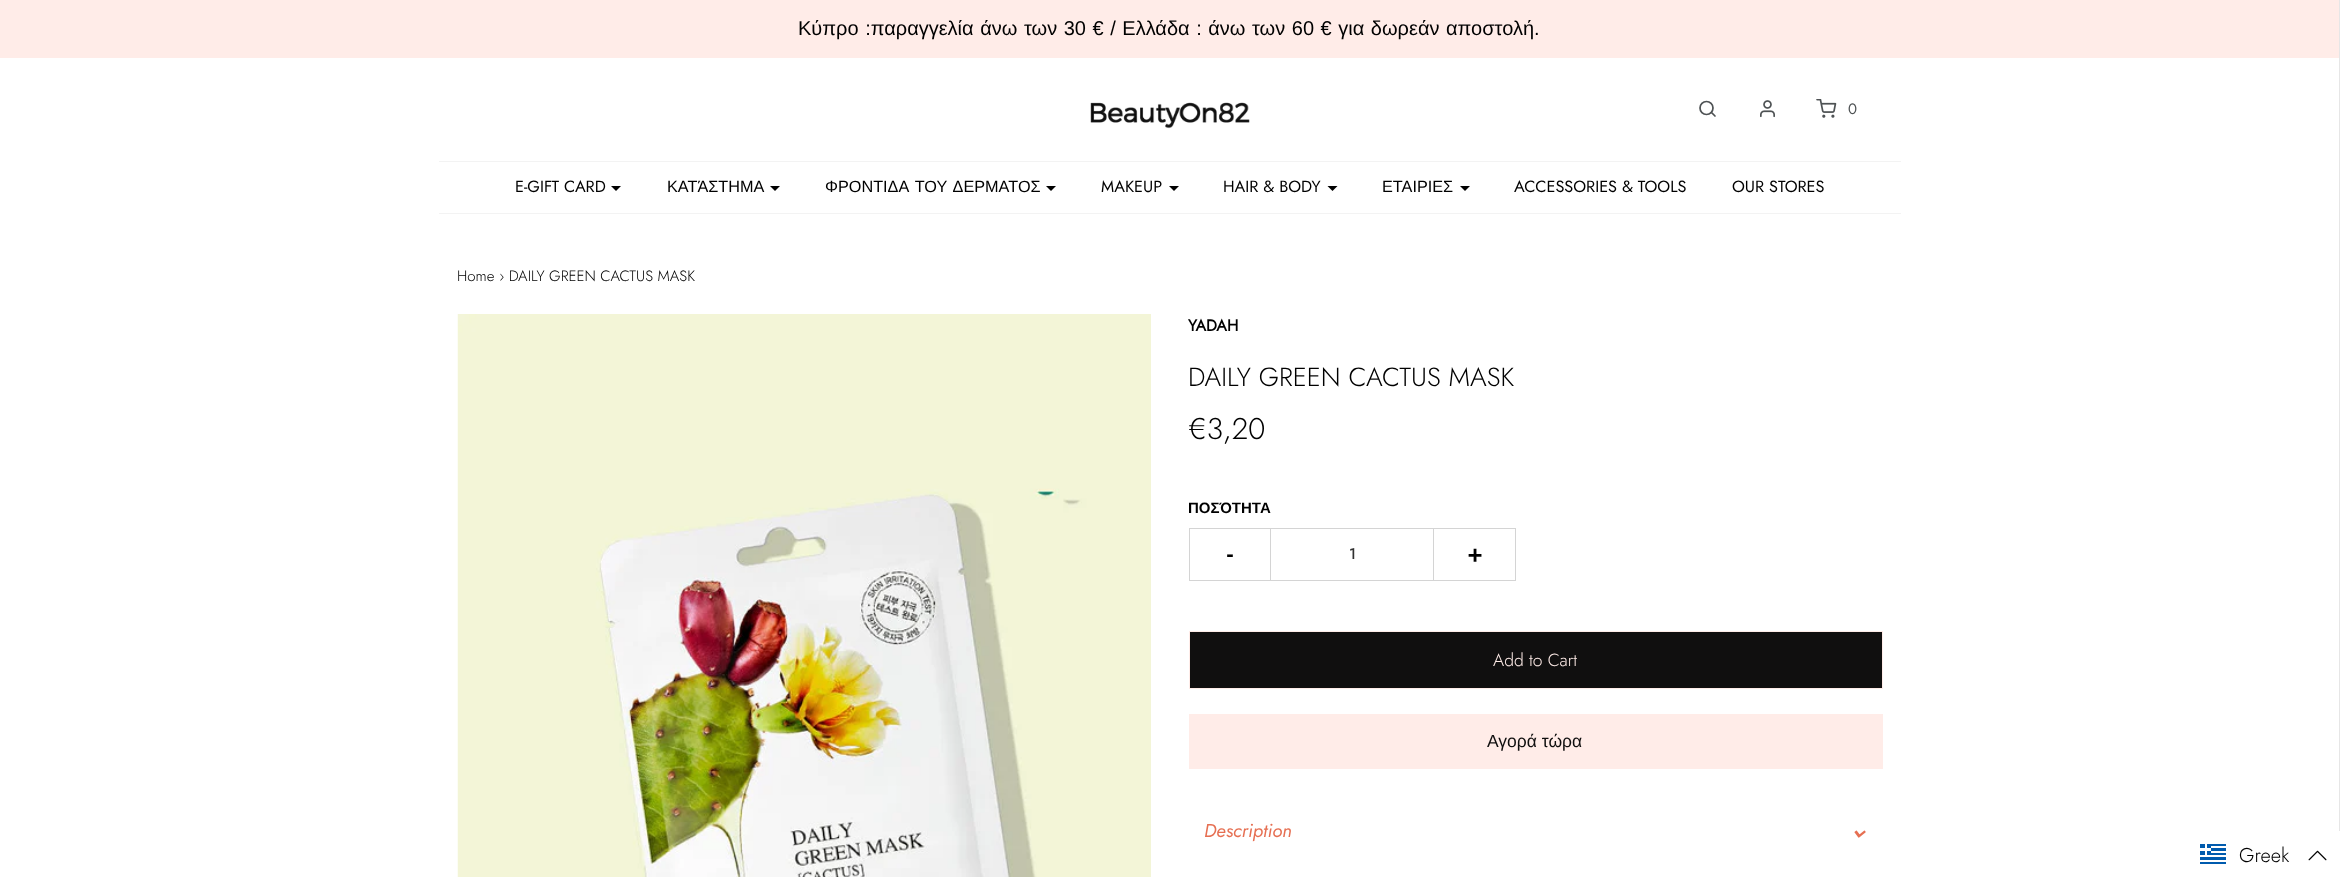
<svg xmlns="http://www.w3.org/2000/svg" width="2340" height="877">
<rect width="100%" height="100%" fill="#fff"/>
<rect x="2339" width="1" height="831" fill="#e6e6e6"/>
<rect width="2339" height="58" fill="#ffece8"/>
<text x="798" y="35" word-spacing="1" style="font-family:Liberation Sans;font-size:20px;fill:#000">Κύπρο :παραγγελία άνω των 30 € / Ελλάδα : άνω των 60 € για δωρεάν αποστολή.</text>
<image x="1090" y="102" width="160" height="27" href="media/1.png"/>
<circle cx="1706.5" cy="108" r="6.5" fill="none" stroke="#4e5254" stroke-width="1.7"/>
<path d="M1715 116l-3.5-3.5" fill="none" stroke="#4e5254" stroke-width="1.7" stroke-linecap="round" stroke-linejoin="round"/>
<image x="1760" y="100" width="15" height="18" href="media/2.png"/>
<image x="1816" y="99" width="21" height="19" href="media/3.png"/>
<text x="1848" y="114" style="font-family:Jost;font-size:15px;fill:#4e5254">0</text>
<rect x="439" y="161" width="1462" height="1" fill="#f3f3f3"/>
<rect x="439" y="213" width="1462" height="1" fill="#f3f3f3"/>
<text x="515" y="192" style="font-family:Jost;font-size:16.25px;fill:#000">E-GIFT CARD</text>
<path d="M611 186h10l-5 5z" fill="#000"/>
<text x="667" y="192" style="font-family:Liberation Sans;font-size:16.25px;fill:#000">ΚΑΤΆΣΤΗΜΑ</text>
<path d="M770 186h10l-5 5z" fill="#000"/>
<text x="825" y="192" word-spacing="2" style="font-family:Liberation Sans;font-size:16.25px;fill:#000">ΦΡΟΝΤΙΔΑ ΤΟΥ ΔΕΡΜΑΤΟΣ</text>
<path d="M1046 186h10l-5 5z" fill="#000"/>
<text x="1101" y="192" style="font-family:Jost;font-size:16.25px;fill:#000">MAKEUP</text>
<path d="M1169 186h10l-5 5z" fill="#000"/>
<text x="1223" y="192" style="font-family:Jost;font-size:16.25px;fill:#000">HAIR &amp; BODY</text>
<path d="M1327.5 186h10l-5 5z" fill="#000"/>
<text x="1382" y="192" style="font-family:Liberation Sans;font-size:16.25px;fill:#000">ΕΤΑΙΡΙΕΣ</text>
<path d="M1460 186h10l-5 5z" fill="#000"/>
<text x="1514" y="192" style="font-family:Jost;font-size:16.25px;fill:#000">ACCESSORIES &amp; TOOLS</text>
<text x="1732" y="192" style="font-family:Jost;font-size:16.25px;fill:#000">OUR STORES</text>
<text x="457" y="281" style="font-family:Jost;font-size:15px;font-weight:300;fill:#000">Home › DAILY GREEN CACTUS MASK</text>
<image x="457" y="314" width="694" height="563" href="media/4.png"/>
<text x="1188" y="331" style="font-family:Jost;font-size:16px;font-weight:bold;fill:#000">YADAH</text>
<text x="1188" y="386" style="font-family:Jost;font-size:26.25px;font-weight:300;fill:#000">DAILY GREEN CACTUS MASK</text>
<text x="1188" y="439" style="font-family:Jost;font-size:30px;font-weight:300;fill:#000">€3,20</text>
<text x="1188" y="513" style="font-family:Liberation Sans;font-size:15px;font-weight:bold;fill:#000">ΠΟΣΌΤΗΤΑ</text>
<rect x="1189" y="528" width="81" height="1" fill="#d4d4d4"/>
<rect x="1189" y="580" width="81" height="1" fill="#d4d4d4"/>
<rect x="1189" y="528" width="1" height="53" fill="#d4d4d4"/>
<text x="1227" y="562" style="font-family:Jost;font-size:25px;font-weight:bold;fill:#000">-</text>
<rect x="1270.5" y="528.5" width="163" height="52" fill="none" stroke="#d4d4d4"/>
<text x="1349" y="559" style="font-family:Jost;font-size:15px;font-weight:bold;fill:#313131">1</text>
<rect x="1434" y="528" width="82" height="1" fill="#d4d4d4"/>
<rect x="1515" y="528" width="1" height="53" fill="#d4d4d4"/>
<rect x="1434" y="580" width="82" height="1" fill="#d4d4d4"/>
<text x="1467" y="562" style="font-family:Jost;font-size:25px;font-weight:bold;fill:#000">+</text>
<rect x="1189.5" y="631.5" width="693" height="57" fill="#100f0f" stroke="#ffece8"/>
<text x="1493" y="666" style="font-family:Jost;font-size:17.5px;font-weight:300;fill:#ffece8">Add to Cart</text>
<rect x="1189" y="714" width="694" height="55" fill="#ffece8"/>
<text x="1487" y="747" style="font-family:Liberation Sans;font-size:17.5px;fill:#100f0f">Αγορά τώρα</text>
<text x="1204" y="837" style="font-family:Jost;font-size:18.75px;font-style:italic;fill:#e66f52">Description</text>
<image x="1854" y="830" width="12" height="8" href="media/5.png"/>
<image x="2200" y="844" width="26" height="20" href="media/6.png"/>
<text x="2239" y="862" style="font-family:Jost;font-size:20px;font-weight:300;fill:#000">Greek</text>
<image x="2308" y="850" width="19" height="11" href="media/7.png"/>
</svg>
